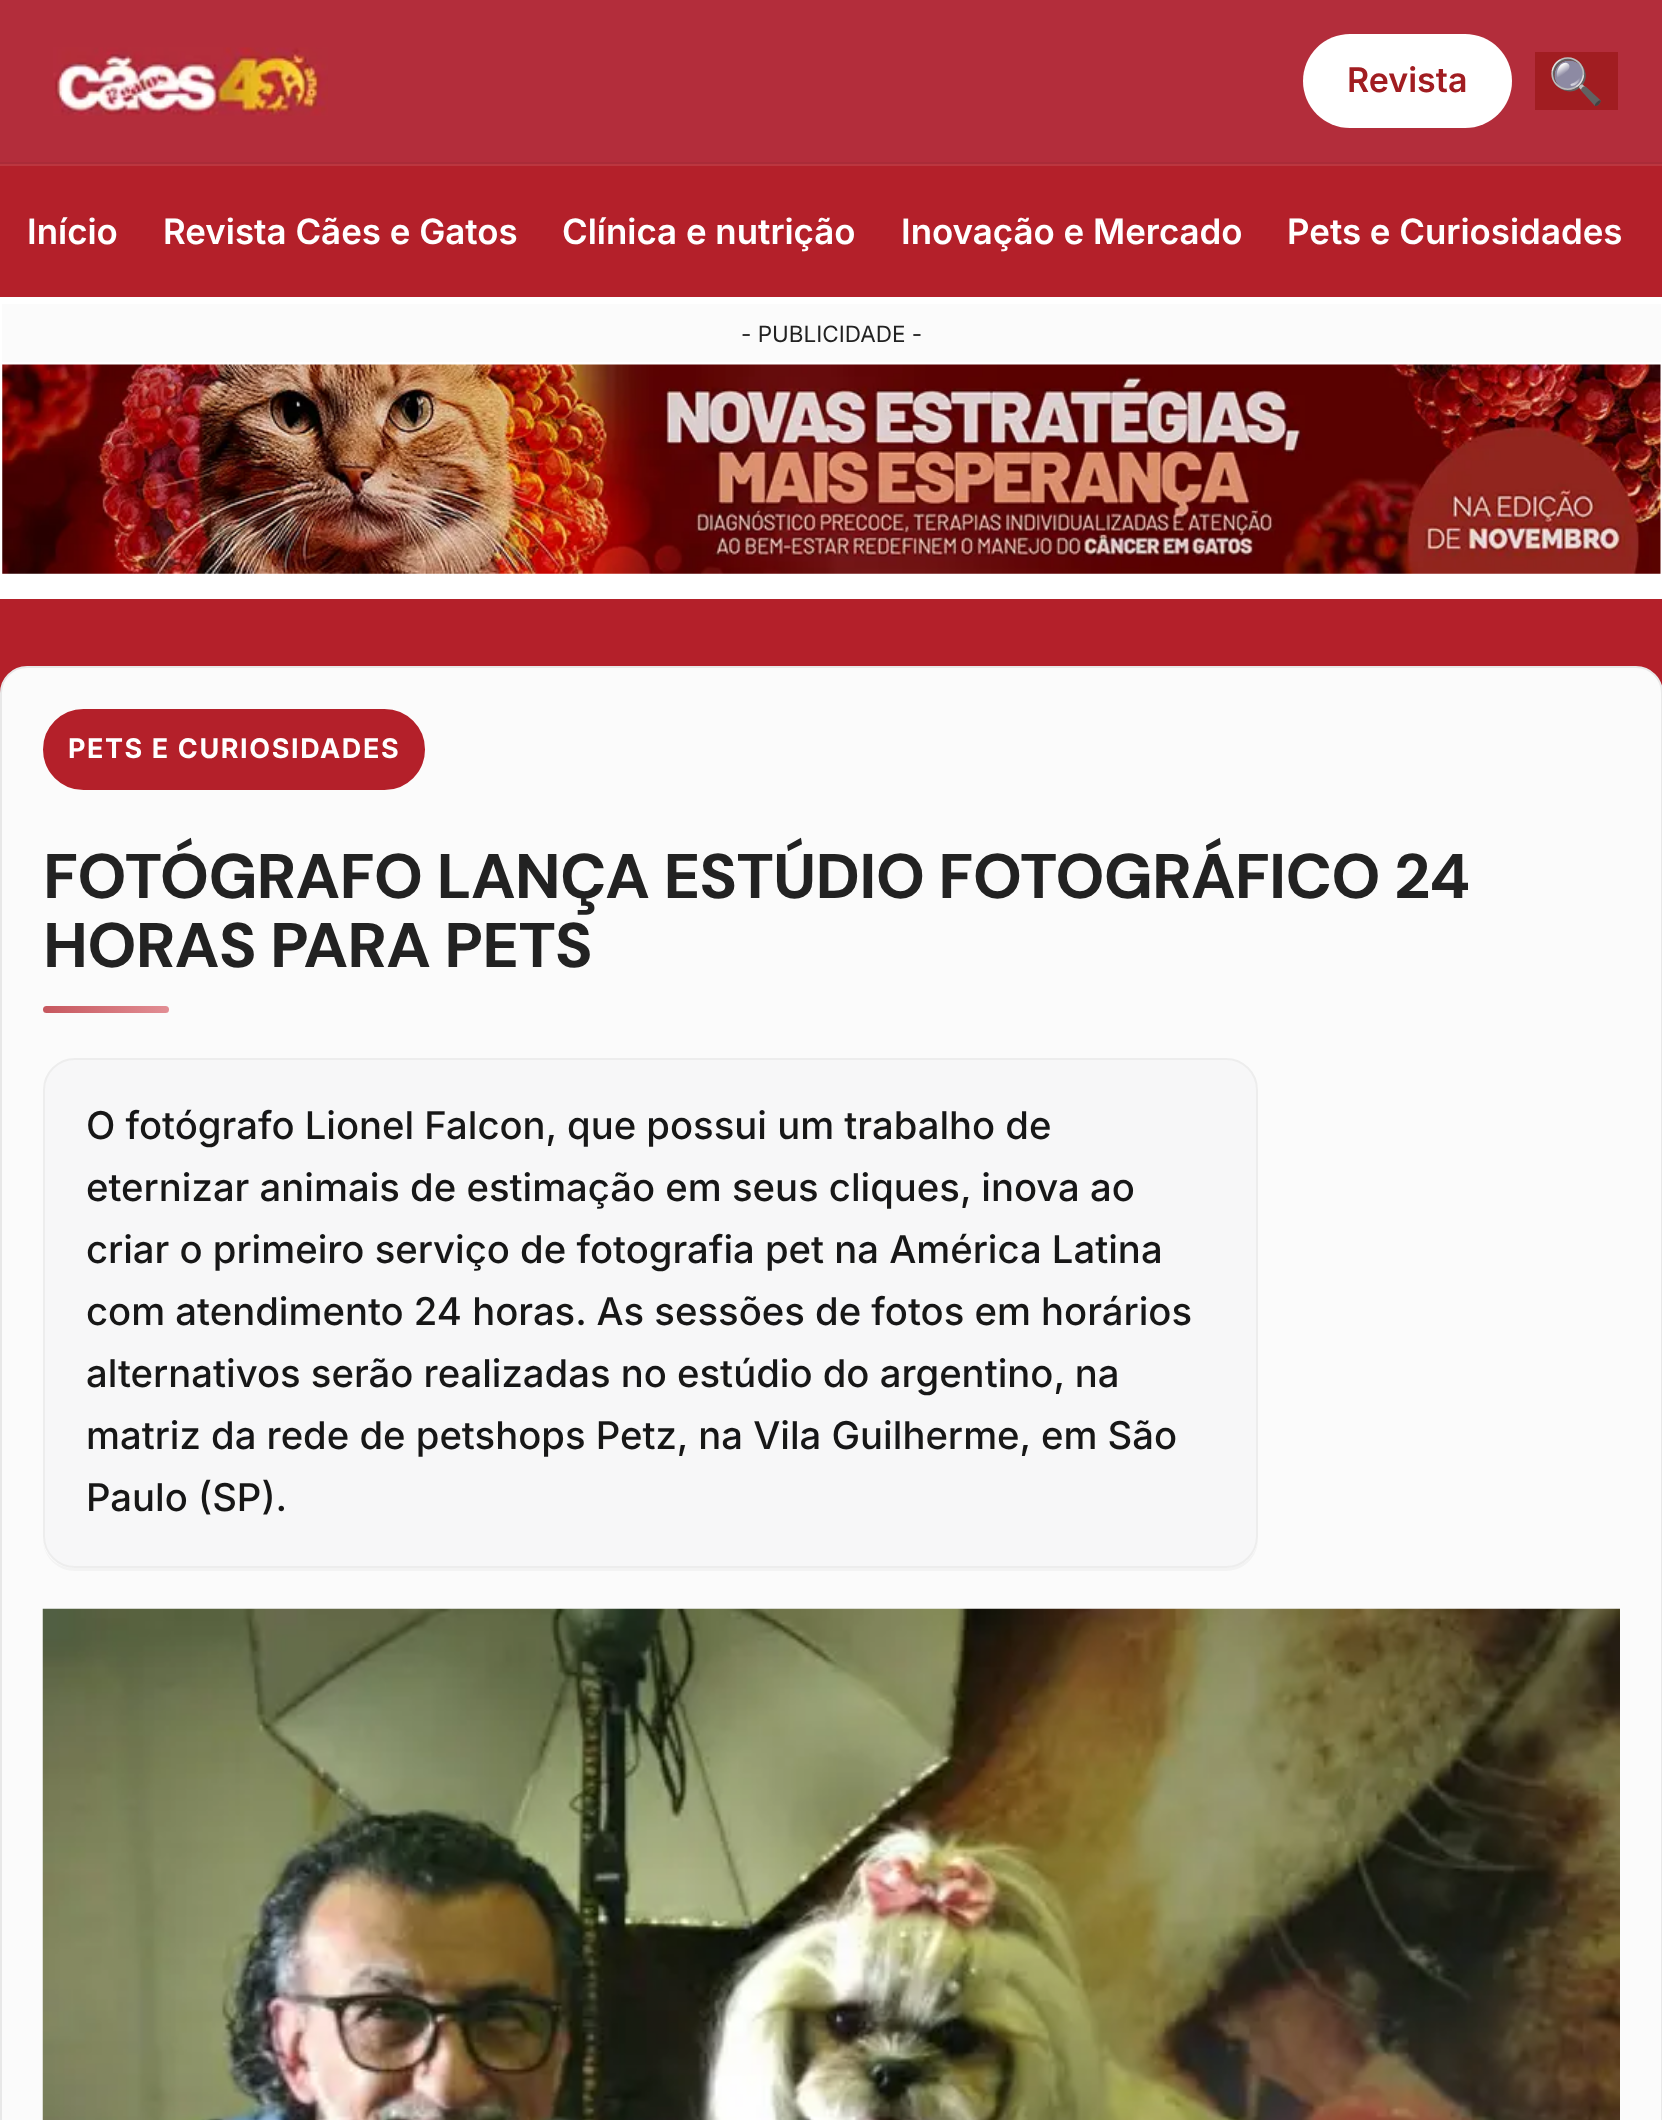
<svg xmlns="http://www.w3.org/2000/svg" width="1662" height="2120">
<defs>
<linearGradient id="g1" gradientUnits="userSpaceOnUse" x1="43" y1="1009" x2="169" y2="1009"><stop offset="0" stop-color="#c6575e"/><stop offset="1" stop-color="#e28e94"/></linearGradient>
</defs>
<rect width="100%" height="100%" fill="#fff"/>
<rect width="1662" height="162" fill="#b32d3b"/>
<rect y="162" width="1662" height="2" fill="#aa2b38"/>
<image x="53" y="47" width="275" height="69" href="media/1.png"/>
<rect x="1303" y="34" width="209" height="94" rx="47" fill="#fff"/>
<text x="1347" y="92" style="font-family:Inter;font-size:34px;font-weight:600;fill:#a11d21">Revista</text>
<rect x="1535" y="52" width="83" height="58" fill="#a11d21"/>
<text x="1548" y="97" style="font-family:Noto Color Emoji;font-size:45px;fill:#222">🔍</text>
<rect y="166" width="1662" height="131" fill="#b4202a"/>
<rect y="164" width="1662" height="2" fill="#bc363f"/>
<text x="27" y="244" style="font-family:Inter;font-size:34.9px;font-weight:600;fill:#fff">Início</text>
<text x="163" y="244" style="font-family:Inter;font-size:34.9px;font-weight:600;fill:#fff">Revista Cães e Gatos</text>
<text x="562" y="244" style="font-family:Inter;font-size:34.9px;font-weight:600;fill:#fff">Clínica e nutrição</text>
<text x="901" y="244" style="font-family:Inter;font-size:34.9px;font-weight:600;fill:#fff">Inovação e Mercado</text>
<text x="1287" y="244" style="font-family:Inter;font-size:34.9px;font-weight:600;fill:#fff">Pets e Curiosidades</text>
<rect x="2" y="304" width="1659" height="58" fill="#fbfbfb"/>
<text x="741" y="342" style="font-family:Inter;font-size:22.5px;fill:#222">- PUBLICIDADE -</text>
<image x="2" y="364" width="1659" height="210" href="media/2.png"/>
<rect y="599" width="1662" height="94" fill="#b4202a"/>
<rect x="1" y="667" width="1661" height="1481" rx="26" fill="#fbfbfb" stroke="#e8e8e8" stroke-width="2"/>
<rect x="44" y="710" width="380" height="79" rx="39.5" fill="#b4202a" stroke="#b4202a" stroke-width="2"/>
<text x="68" y="758" style="font-family:Inter;font-size:27px;font-weight:bold;letter-spacing:1.6px;fill:#fff">PETS E CURIOSIDADES</text>
<text x="43" y="898" style="font-family:DM Sans;font-size:63px;font-weight:bold;letter-spacing:-0.75px;fill:#222">FOTÓGRAFO LANÇA ESTÚDIO FOTOGRÁFICO 24</text>
<text x="43" y="967" style="font-family:DM Sans;font-size:63px;font-weight:bold;letter-spacing:-0.75px;fill:#222">HORAS PARA PETS</text>
<rect x="43" y="1006" width="126" height="7" rx="3.5" fill="url(#g1)"/>
<path d="M43 1541c1 17 15 30 32 30h1151c18 0 32-14 32-32v-451v449c0 17-14 31-32 31h-1152c-16 0-29-11-31-27z" fill="#f3f3f3"/>
<rect x="44" y="1059" width="1213" height="508" rx="31" fill="#f7f7f8" stroke="#ededed" stroke-width="2"/>
<text x="86" y="1139" style="font-family:Inter;font-size:38.25px;font-weight:500;fill:#171717">O fotógrafo Lionel Falcon, que possui um trabalho de</text>
<text x="86" y="1201" style="font-family:Inter;font-size:38.25px;font-weight:500;fill:#171717">eternizar animais de estimação em seus cliques, inova ao</text>
<text x="86" y="1263" style="font-family:Inter;font-size:38.25px;font-weight:500;fill:#171717">criar o primeiro serviço de fotografia pet na América Latina</text>
<text x="86" y="1325" style="font-family:Inter;font-size:38.25px;font-weight:500;fill:#171717">com atendimento 24 horas. As sessões de fotos em horários</text>
<text x="86" y="1387" style="font-family:Inter;font-size:38.25px;font-weight:500;fill:#171717">alternativos serão realizadas no estúdio do argentino, na</text>
<text x="86" y="1449" style="font-family:Inter;font-size:38.25px;font-weight:500;fill:#171717">matriz da rede de petshops Petz, na Vila Guilherme, em São</text>
<text x="86" y="1511" style="font-family:Inter;font-size:38.25px;font-weight:500;fill:#171717">Paulo (SP).</text>
<image x="42" y="1608" width="1578" height="512" href="media/3.png"/>
</svg>
